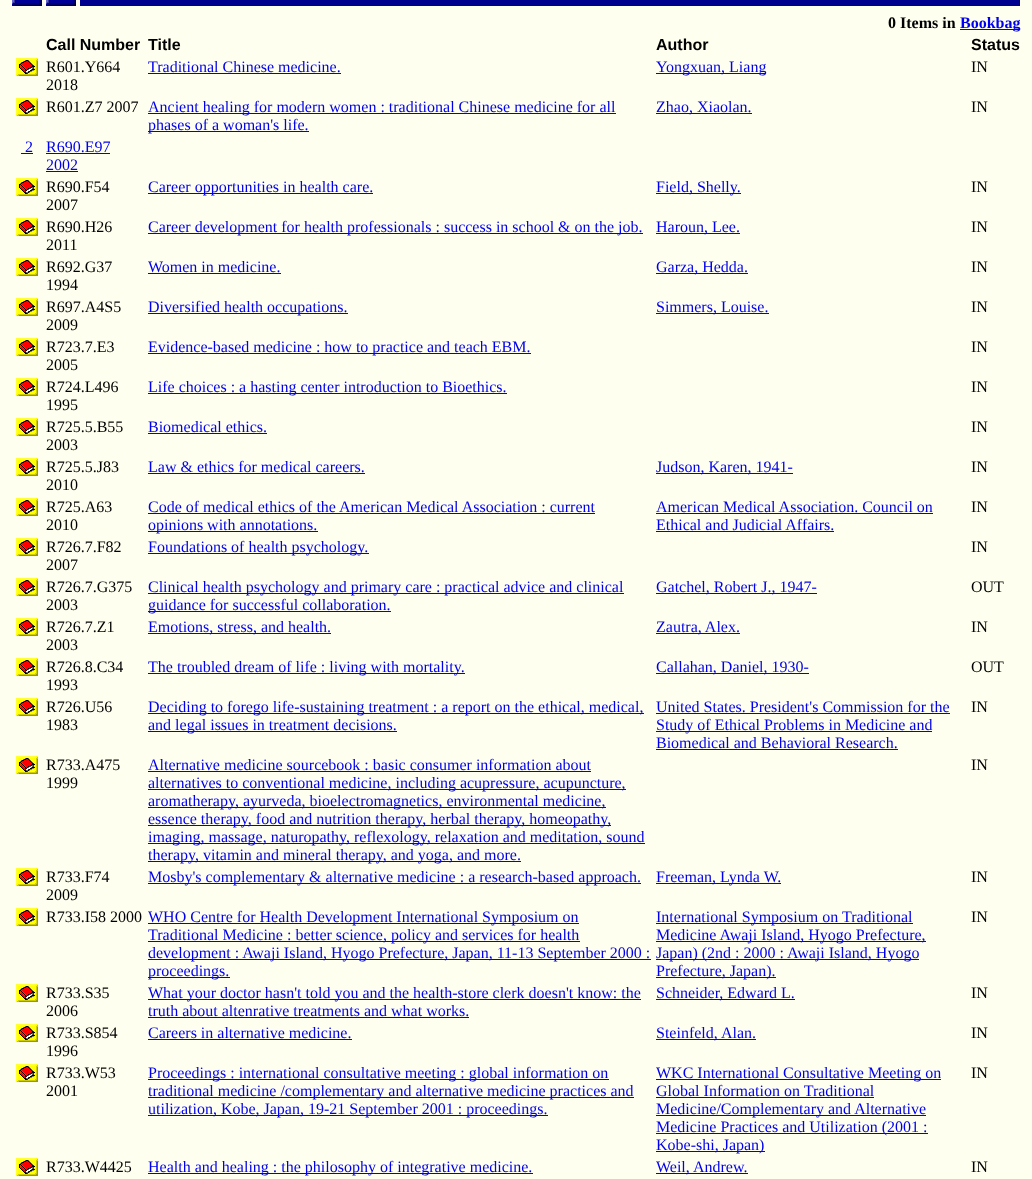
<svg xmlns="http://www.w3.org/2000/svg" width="1032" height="1179">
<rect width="100%" height="100%" fill="#ffffef"/>
<image x="12" y="0" width="30" height="6" href="media/1.png"/>
<image x="46" y="0" width="30" height="6" href="media/1.png"/>
<rect x="80" width="940" height="6" fill="#00008e"/>
<text x="888" y="28" style="font-family:Liberation Serif;font-size:16px;font-weight:bold;fill:#000">0 Items in</text>
<rect x="960" y="29" width="60" height="1" fill="#00e"/>
<text x="960" y="28" style="font-family:Liberation Serif;font-size:16px;font-weight:bold;fill:#00e">Bookbag</text>
<text x="46" y="50" style="font-family:Liberation Sans;font-size:16px;font-weight:bold;fill:#000">Call Number</text>
<text x="148" y="50" style="font-family:Liberation Sans;font-size:16px;font-weight:bold;fill:#000">Title</text>
<text x="656" y="50" style="font-family:Liberation Sans;font-size:16px;font-weight:bold;fill:#000">Author</text>
<text x="971" y="50" style="font-family:Liberation Sans;font-size:16px;font-weight:bold;fill:#000">Status</text>
<image x="16" y="58" width="22" height="18" href="media/2.png"/>
<text x="46" y="72" style="font-family:Liberation Serif;font-size:16px;fill:#000">R601.Y664</text>
<text x="46" y="90" style="font-family:Liberation Serif;font-size:16px;fill:#000">2018</text>
<text x="148" y="72" style="font-family:Liberation Serif;font-size:16px;fill:#00e">Traditional Chinese medicine.</text>
<rect x="148" y="73" width="193" height="1" fill="#00e"/>
<rect x="656" y="73" width="110" height="1" fill="#00e"/>
<text x="656" y="72" style="font-family:Liberation Serif;font-size:16px;fill:#00e">Yongxuan, Liang</text>
<text x="971" y="72" style="font-family:Liberation Serif;font-size:16px;fill:#000">IN</text>
<image x="16" y="98" width="22" height="18" href="media/2.png"/>
<text x="46" y="112" style="font-family:Liberation Serif;font-size:16px;fill:#000">R601.Z7 2007</text>
<rect x="148" y="113" width="468" height="1" fill="#00e"/>
<text x="148" y="112" style="font-family:Liberation Serif;font-size:16px;fill:#00e">Ancient healing for modern women : traditional Chinese medicine for all</text>
<rect x="148" y="131" width="161" height="1" fill="#00e"/>
<text x="148" y="130" style="font-family:Liberation Serif;font-size:16px;fill:#00e">phases of a woman's life.</text>
<rect x="656" y="113" width="96" height="1" fill="#00e"/>
<text x="656" y="112" style="font-family:Liberation Serif;font-size:16px;fill:#00e">Zhao, Xiaolan.</text>
<text x="971" y="112" style="font-family:Liberation Serif;font-size:16px;fill:#000">IN</text>
<text x="25" y="152" style="font-family:Liberation Serif;font-size:16px;fill:#00e">2</text>
<rect x="21" y="153" width="12" height="1" fill="#00e"/>
<text x="46" y="152" style="font-family:Liberation Serif;font-size:16px;fill:#00e">R690.E97</text>
<rect x="46" y="153" width="64" height="1" fill="#00e"/>
<text x="46" y="170" style="font-family:Liberation Serif;font-size:16px;fill:#00e">2002</text>
<rect x="46" y="171" width="32" height="1" fill="#00e"/>
<image x="16" y="178" width="22" height="18" href="media/2.png"/>
<text x="46" y="192" style="font-family:Liberation Serif;font-size:16px;fill:#000">R690.F54</text>
<text x="46" y="210" style="font-family:Liberation Serif;font-size:16px;fill:#000">2007</text>
<rect x="148" y="193" width="225" height="1" fill="#00e"/>
<text x="148" y="192" style="font-family:Liberation Serif;font-size:16px;fill:#00e">Career opportunities in health care.</text>
<rect x="656" y="193" width="85" height="1" fill="#00e"/>
<text x="656" y="192" style="font-family:Liberation Serif;font-size:16px;fill:#00e">Field, Shelly.</text>
<text x="971" y="192" style="font-family:Liberation Serif;font-size:16px;fill:#000">IN</text>
<image x="16" y="218" width="22" height="18" href="media/2.png"/>
<text x="46" y="232" style="font-family:Liberation Serif;font-size:16px;fill:#000">R690.H26</text>
<text x="46" y="250" style="font-family:Liberation Serif;font-size:16px;fill:#000">2011</text>
<rect x="148" y="233" width="495" height="1" fill="#00e"/>
<text x="148" y="232" style="font-family:Liberation Serif;font-size:16px;fill:#00e">Career development for health professionals : success in school &amp; on the job.</text>
<rect x="656" y="233" width="84" height="1" fill="#00e"/>
<text x="656" y="232" style="font-family:Liberation Serif;font-size:16px;fill:#00e">Haroun, Lee.</text>
<text x="971" y="232" style="font-family:Liberation Serif;font-size:16px;fill:#000">IN</text>
<image x="16" y="258" width="22" height="18" href="media/2.png"/>
<text x="46" y="272" style="font-family:Liberation Serif;font-size:16px;fill:#000">R692.G37</text>
<text x="46" y="290" style="font-family:Liberation Serif;font-size:16px;fill:#000">1994</text>
<text x="148" y="272" style="font-family:Liberation Serif;font-size:16px;fill:#00e">Women in medicine.</text>
<rect x="148" y="273" width="133" height="1" fill="#00e"/>
<rect x="656" y="273" width="92" height="1" fill="#00e"/>
<text x="656" y="272" style="font-family:Liberation Serif;font-size:16px;fill:#00e">Garza, Hedda.</text>
<text x="971" y="272" style="font-family:Liberation Serif;font-size:16px;fill:#000">IN</text>
<image x="16" y="298" width="22" height="18" href="media/2.png"/>
<text x="46" y="312" style="font-family:Liberation Serif;font-size:16px;fill:#000">R697.A4S5</text>
<text x="46" y="330" style="font-family:Liberation Serif;font-size:16px;fill:#000">2009</text>
<rect x="148" y="313" width="200" height="1" fill="#00e"/>
<text x="148" y="312" style="font-family:Liberation Serif;font-size:16px;fill:#00e">Diversified health occupations.</text>
<rect x="656" y="313" width="113" height="1" fill="#00e"/>
<text x="656" y="312" style="font-family:Liberation Serif;font-size:16px;fill:#00e">Simmers, Louise.</text>
<text x="971" y="312" style="font-family:Liberation Serif;font-size:16px;fill:#000">IN</text>
<image x="16" y="338" width="22" height="18" href="media/2.png"/>
<text x="46" y="352" style="font-family:Liberation Serif;font-size:16px;fill:#000">R723.7.E3</text>
<text x="46" y="370" style="font-family:Liberation Serif;font-size:16px;fill:#000">2005</text>
<rect x="148" y="353" width="383" height="1" fill="#00e"/>
<text x="148" y="352" style="font-family:Liberation Serif;font-size:16px;fill:#00e">Evidence-based medicine : how to practice and teach EBM.</text>
<text x="971" y="352" style="font-family:Liberation Serif;font-size:16px;fill:#000">IN</text>
<image x="16" y="378" width="22" height="18" href="media/2.png"/>
<text x="46" y="392" style="font-family:Liberation Serif;font-size:16px;fill:#000">R724.L496</text>
<text x="46" y="410" style="font-family:Liberation Serif;font-size:16px;fill:#000">1995</text>
<rect x="148" y="393" width="359" height="1" fill="#00e"/>
<text x="148" y="392" style="font-family:Liberation Serif;font-size:16px;fill:#00e">Life choices : a hasting center introduction to Bioethics.</text>
<text x="971" y="392" style="font-family:Liberation Serif;font-size:16px;fill:#000">IN</text>
<image x="16" y="418" width="22" height="18" href="media/2.png"/>
<text x="46" y="432" style="font-family:Liberation Serif;font-size:16px;fill:#000">R725.5.B55</text>
<text x="46" y="450" style="font-family:Liberation Serif;font-size:16px;fill:#000">2003</text>
<text x="148" y="432" style="font-family:Liberation Serif;font-size:16px;fill:#00e">Biomedical ethics.</text>
<rect x="148" y="433" width="119" height="1" fill="#00e"/>
<text x="971" y="432" style="font-family:Liberation Serif;font-size:16px;fill:#000">IN</text>
<image x="16" y="458" width="22" height="18" href="media/2.png"/>
<text x="46" y="472" style="font-family:Liberation Serif;font-size:16px;fill:#000">R725.5.J83</text>
<text x="46" y="490" style="font-family:Liberation Serif;font-size:16px;fill:#000">2010</text>
<text x="148" y="472" style="font-family:Liberation Serif;font-size:16px;fill:#00e">Law &amp; ethics for medical careers.</text>
<rect x="148" y="473" width="217" height="1" fill="#00e"/>
<rect x="656" y="473" width="137" height="1" fill="#00e"/>
<text x="656" y="472" style="font-family:Liberation Serif;font-size:16px;fill:#00e">Judson, Karen, 1941-</text>
<text x="971" y="472" style="font-family:Liberation Serif;font-size:16px;fill:#000">IN</text>
<image x="16" y="498" width="22" height="18" href="media/2.png"/>
<text x="46" y="512" style="font-family:Liberation Serif;font-size:16px;fill:#000">R725.A63</text>
<text x="46" y="530" style="font-family:Liberation Serif;font-size:16px;fill:#000">2010</text>
<text x="148" y="512" style="font-family:Liberation Serif;font-size:16px;fill:#00e">Code of medical ethics of the American Medical Association : current</text>
<rect x="148" y="513" width="447" height="1" fill="#00e"/>
<rect x="148" y="531" width="170" height="1" fill="#00e"/>
<text x="148" y="530" style="font-family:Liberation Serif;font-size:16px;fill:#00e">opinions with annotations.</text>
<text x="656" y="512" style="font-family:Liberation Serif;font-size:16px;fill:#00e">American Medical Association. Council on</text>
<rect x="656" y="513" width="277" height="1" fill="#00e"/>
<text x="656" y="530" style="font-family:Liberation Serif;font-size:16px;fill:#00e">Ethical and Judicial Affairs.</text>
<rect x="656" y="531" width="178" height="1" fill="#00e"/>
<text x="971" y="512" style="font-family:Liberation Serif;font-size:16px;fill:#000">IN</text>
<image x="16" y="538" width="22" height="18" href="media/2.png"/>
<text x="46" y="552" style="font-family:Liberation Serif;font-size:16px;fill:#000">R726.7.F82</text>
<text x="46" y="570" style="font-family:Liberation Serif;font-size:16px;fill:#000">2007</text>
<rect x="148" y="553" width="221" height="1" fill="#00e"/>
<text x="148" y="552" style="font-family:Liberation Serif;font-size:16px;fill:#00e">Foundations of health psychology.</text>
<text x="971" y="552" style="font-family:Liberation Serif;font-size:16px;fill:#000">IN</text>
<image x="16" y="578" width="22" height="18" href="media/2.png"/>
<text x="46" y="592" style="font-family:Liberation Serif;font-size:16px;fill:#000">R726.7.G375</text>
<text x="46" y="610" style="font-family:Liberation Serif;font-size:16px;fill:#000">2003</text>
<rect x="148" y="593" width="476" height="1" fill="#00e"/>
<text x="148" y="592" style="font-family:Liberation Serif;font-size:16px;fill:#00e">Clinical health psychology and primary care : practical advice and clinical</text>
<rect x="148" y="611" width="243" height="1" fill="#00e"/>
<text x="148" y="610" style="font-family:Liberation Serif;font-size:16px;fill:#00e">guidance for successful collaboration.</text>
<rect x="656" y="593" width="161" height="1" fill="#00e"/>
<text x="656" y="592" style="font-family:Liberation Serif;font-size:16px;fill:#00e">Gatchel, Robert J., 1947-</text>
<text x="971" y="592" style="font-family:Liberation Serif;font-size:16px;fill:#000">OUT</text>
<image x="16" y="618" width="22" height="18" href="media/2.png"/>
<text x="46" y="632" style="font-family:Liberation Serif;font-size:16px;fill:#000">R726.7.Z1</text>
<text x="46" y="650" style="font-family:Liberation Serif;font-size:16px;fill:#000">2003</text>
<rect x="148" y="633" width="183" height="1" fill="#00e"/>
<text x="148" y="632" style="font-family:Liberation Serif;font-size:16px;fill:#00e">Emotions, stress, and health.</text>
<rect x="656" y="633" width="84" height="1" fill="#00e"/>
<text x="656" y="632" style="font-family:Liberation Serif;font-size:16px;fill:#00e">Zautra, Alex.</text>
<text x="971" y="632" style="font-family:Liberation Serif;font-size:16px;fill:#000">IN</text>
<image x="16" y="658" width="22" height="18" href="media/2.png"/>
<text x="46" y="672" style="font-family:Liberation Serif;font-size:16px;fill:#000">R726.8.C34</text>
<text x="46" y="690" style="font-family:Liberation Serif;font-size:16px;fill:#000">1993</text>
<rect x="148" y="673" width="317" height="1" fill="#00e"/>
<text x="148" y="672" style="font-family:Liberation Serif;font-size:16px;fill:#00e">The troubled dream of life : living with mortality.</text>
<rect x="656" y="673" width="153" height="1" fill="#00e"/>
<text x="656" y="672" style="font-family:Liberation Serif;font-size:16px;fill:#00e">Callahan, Daniel, 1930-</text>
<text x="971" y="672" style="font-family:Liberation Serif;font-size:16px;fill:#000">OUT</text>
<image x="16" y="698" width="22" height="18" href="media/2.png"/>
<text x="46" y="712" style="font-family:Liberation Serif;font-size:16px;fill:#000">R726.U56</text>
<text x="46" y="730" style="font-family:Liberation Serif;font-size:16px;fill:#000">1983</text>
<rect x="148" y="713" width="496" height="1" fill="#00e"/>
<text x="148" y="712" style="font-family:Liberation Serif;font-size:16px;fill:#00e">Deciding to forego life-sustaining treatment : a report on the ethical, medical,</text>
<rect x="148" y="731" width="249" height="1" fill="#00e"/>
<text x="148" y="730" style="font-family:Liberation Serif;font-size:16px;fill:#00e">and legal issues in treatment decisions.</text>
<text x="656" y="712" style="font-family:Liberation Serif;font-size:16px;fill:#00e">United States. President's Commission for the</text>
<rect x="656" y="713" width="294" height="1" fill="#00e"/>
<rect x="656" y="731" width="276" height="1" fill="#00e"/>
<text x="656" y="730" style="font-family:Liberation Serif;font-size:16px;fill:#00e">Study of Ethical Problems in Medicine and</text>
<text x="656" y="748" style="font-family:Liberation Serif;font-size:16px;fill:#00e">Biomedical and Behavioral Research.</text>
<rect x="656" y="749" width="242" height="1" fill="#00e"/>
<text x="971" y="712" style="font-family:Liberation Serif;font-size:16px;fill:#000">IN</text>
<image x="16" y="756" width="22" height="18" href="media/2.png"/>
<text x="46" y="770" style="font-family:Liberation Serif;font-size:16px;fill:#000">R733.A475</text>
<text x="46" y="788" style="font-family:Liberation Serif;font-size:16px;fill:#000">1999</text>
<text x="148" y="770" style="font-family:Liberation Serif;font-size:16px;fill:#00e">Alternative medicine sourcebook : basic consumer information about</text>
<rect x="148" y="771" width="443" height="1" fill="#00e"/>
<rect x="148" y="789" width="478" height="1" fill="#00e"/>
<text x="148" y="788" style="font-family:Liberation Serif;font-size:16px;fill:#00e">alternatives to conventional medicine, including acupressure, acupuncture,</text>
<rect x="148" y="807" width="458" height="1" fill="#00e"/>
<text x="148" y="806" style="font-family:Liberation Serif;font-size:16px;fill:#00e">aromatherapy, ayurveda, bioelectromagnetics, environmental medicine,</text>
<rect x="148" y="825" width="463" height="1" fill="#00e"/>
<text x="148" y="824" style="font-family:Liberation Serif;font-size:16px;fill:#00e">essence therapy, food and nutrition therapy, herbal therapy, homeopathy,</text>
<rect x="148" y="843" width="497" height="1" fill="#00e"/>
<text x="148" y="842" style="font-family:Liberation Serif;font-size:16px;fill:#00e">imaging, massage, naturopathy, reflexology, relaxation and meditation, sound</text>
<rect x="148" y="861" width="373" height="1" fill="#00e"/>
<text x="148" y="860" style="font-family:Liberation Serif;font-size:16px;fill:#00e">therapy, vitamin and mineral therapy, and yoga, and more.</text>
<text x="971" y="770" style="font-family:Liberation Serif;font-size:16px;fill:#000">IN</text>
<image x="16" y="868" width="22" height="18" href="media/2.png"/>
<text x="46" y="882" style="font-family:Liberation Serif;font-size:16px;fill:#000">R733.F74</text>
<text x="46" y="900" style="font-family:Liberation Serif;font-size:16px;fill:#000">2009</text>
<rect x="148" y="883" width="493" height="1" fill="#00e"/>
<text x="148" y="882" style="font-family:Liberation Serif;font-size:16px;fill:#00e">Mosby's complementary &amp; alternative medicine : a research-based approach.</text>
<rect x="656" y="883" width="125" height="1" fill="#00e"/>
<text x="656" y="882" style="font-family:Liberation Serif;font-size:16px;fill:#00e">Freeman, Lynda W.</text>
<text x="971" y="882" style="font-family:Liberation Serif;font-size:16px;fill:#000">IN</text>
<image x="16" y="908" width="22" height="18" href="media/2.png"/>
<text x="46" y="922" style="font-family:Liberation Serif;font-size:16px;fill:#000">R733.I58 2000</text>
<rect x="148" y="923" width="431" height="1" fill="#00e"/>
<text x="148" y="922" style="font-family:Liberation Serif;font-size:16px;fill:#00e">WHO Centre for Health Development International Symposium on</text>
<rect x="148" y="941" width="432" height="1" fill="#00e"/>
<text x="148" y="940" style="font-family:Liberation Serif;font-size:16px;fill:#00e">Traditional Medicine : better science, policy and services for health</text>
<rect x="148" y="959" width="503" height="1" fill="#00e"/>
<text x="148" y="958" style="font-family:Liberation Serif;font-size:16px;fill:#00e">development : Awaji Island, Hyogo Prefecture, Japan, 11-13 September 2000 :</text>
<rect x="148" y="977" width="82" height="1" fill="#00e"/>
<text x="148" y="976" style="font-family:Liberation Serif;font-size:16px;fill:#00e">proceedings.</text>
<rect x="656" y="923" width="257" height="1" fill="#00e"/>
<text x="656" y="922" style="font-family:Liberation Serif;font-size:16px;fill:#00e">International Symposium on Traditional</text>
<rect x="656" y="941" width="270" height="1" fill="#00e"/>
<text x="656" y="940" style="font-family:Liberation Serif;font-size:16px;fill:#00e">Medicine Awaji Island, Hyogo Prefecture,</text>
<rect x="656" y="959" width="263" height="1" fill="#00e"/>
<text x="656" y="958" style="font-family:Liberation Serif;font-size:16px;fill:#00e">Japan) (2nd : 2000 : Awaji Island, Hyogo</text>
<rect x="656" y="977" width="120" height="1" fill="#00e"/>
<text x="656" y="976" style="font-family:Liberation Serif;font-size:16px;fill:#00e">Prefecture, Japan).</text>
<text x="971" y="922" style="font-family:Liberation Serif;font-size:16px;fill:#000">IN</text>
<image x="16" y="984" width="22" height="18" href="media/2.png"/>
<text x="46" y="998" style="font-family:Liberation Serif;font-size:16px;fill:#000">R733.S35</text>
<text x="46" y="1016" style="font-family:Liberation Serif;font-size:16px;fill:#000">2006</text>
<rect x="148" y="999" width="493" height="1" fill="#00e"/>
<text x="148" y="998" style="font-family:Liberation Serif;font-size:16px;fill:#00e">What your doctor hasn't told you and the health-store clerk doesn't know: the</text>
<text x="148" y="1016" style="font-family:Liberation Serif;font-size:16px;fill:#00e">truth about altenrative treatments and what works.</text>
<rect x="148" y="1017" width="321" height="1" fill="#00e"/>
<rect x="656" y="999" width="139" height="1" fill="#00e"/>
<text x="656" y="998" style="font-family:Liberation Serif;font-size:16px;fill:#00e">Schneider, Edward L.</text>
<text x="971" y="998" style="font-family:Liberation Serif;font-size:16px;fill:#000">IN</text>
<image x="16" y="1024" width="22" height="18" href="media/2.png"/>
<text x="46" y="1038" style="font-family:Liberation Serif;font-size:16px;fill:#000">R733.S854</text>
<text x="46" y="1056" style="font-family:Liberation Serif;font-size:16px;fill:#000">1996</text>
<text x="148" y="1038" style="font-family:Liberation Serif;font-size:16px;fill:#00e">Careers in alternative medicine.</text>
<rect x="148" y="1039" width="204" height="1" fill="#00e"/>
<rect x="656" y="1039" width="100" height="1" fill="#00e"/>
<text x="656" y="1038" style="font-family:Liberation Serif;font-size:16px;fill:#00e">Steinfeld, Alan.</text>
<text x="971" y="1038" style="font-family:Liberation Serif;font-size:16px;fill:#000">IN</text>
<image x="16" y="1064" width="22" height="18" href="media/2.png"/>
<text x="46" y="1078" style="font-family:Liberation Serif;font-size:16px;fill:#000">R733.W53</text>
<text x="46" y="1096" style="font-family:Liberation Serif;font-size:16px;fill:#000">2001</text>
<rect x="148" y="1079" width="461" height="1" fill="#00e"/>
<text x="148" y="1078" style="font-family:Liberation Serif;font-size:16px;fill:#00e">Proceedings : international consultative meeting : global information on</text>
<rect x="148" y="1097" width="486" height="1" fill="#00e"/>
<text x="148" y="1096" style="font-family:Liberation Serif;font-size:16px;fill:#00e">traditional medicine /complementary and alternative medicine practices and</text>
<rect x="148" y="1115" width="400" height="1" fill="#00e"/>
<text x="148" y="1114" style="font-family:Liberation Serif;font-size:16px;fill:#00e">utilization, Kobe, Japan, 19-21 September 2001 : proceedings.</text>
<rect x="656" y="1079" width="285" height="1" fill="#00e"/>
<text x="656" y="1078" style="font-family:Liberation Serif;font-size:16px;fill:#00e">WKC International Consultative Meeting on</text>
<text x="656" y="1096" style="font-family:Liberation Serif;font-size:16px;fill:#00e">Global Information on Traditional</text>
<rect x="656" y="1097" width="218" height="1" fill="#00e"/>
<rect x="656" y="1115" width="270" height="1" fill="#00e"/>
<text x="656" y="1114" style="font-family:Liberation Serif;font-size:16px;fill:#00e">Medicine/Complementary and Alternative</text>
<rect x="656" y="1133" width="272" height="1" fill="#00e"/>
<text x="656" y="1132" style="font-family:Liberation Serif;font-size:16px;fill:#00e">Medicine Practices and Utilization (2001 :</text>
<rect x="656" y="1151" width="109" height="1" fill="#00e"/>
<text x="656" y="1150" style="font-family:Liberation Serif;font-size:16px;fill:#00e">Kobe-shi, Japan)</text>
<text x="971" y="1078" style="font-family:Liberation Serif;font-size:16px;fill:#000">IN</text>
<image x="16" y="1158" width="22" height="18" href="media/2.png"/>
<text x="46" y="1172" style="font-family:Liberation Serif;font-size:16px;fill:#000">R733.W4425</text>
<rect x="148" y="1173" width="385" height="1" fill="#00e"/>
<text x="148" y="1172" style="font-family:Liberation Serif;font-size:16px;fill:#00e">Health and healing : the philosophy of integrative medicine.</text>
<rect x="656" y="1173" width="92" height="1" fill="#00e"/>
<text x="656" y="1172" style="font-family:Liberation Serif;font-size:16px;fill:#00e">Weil, Andrew.</text>
<text x="971" y="1172" style="font-family:Liberation Serif;font-size:16px;fill:#000">IN</text>
</svg>
